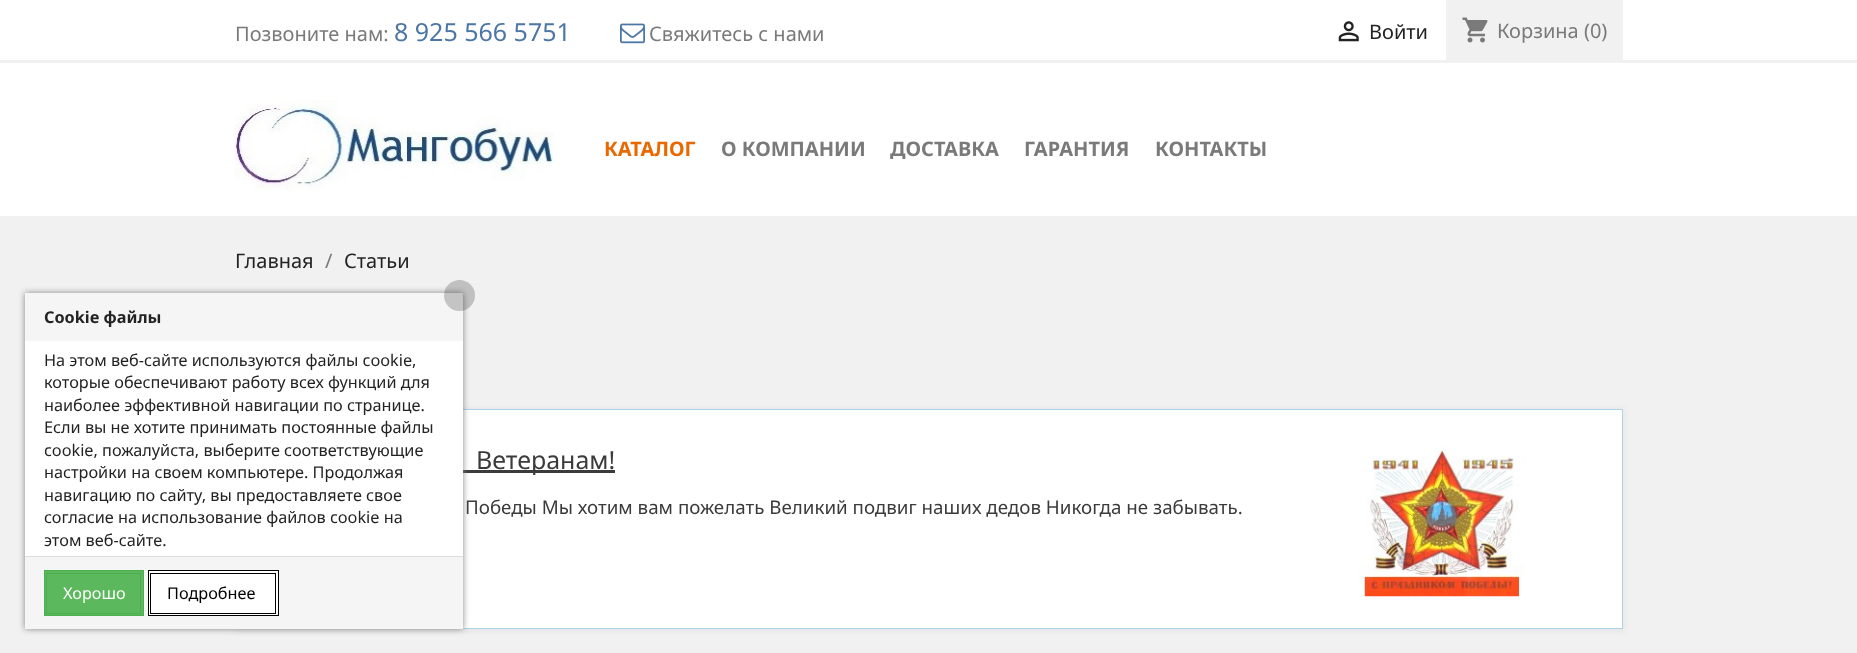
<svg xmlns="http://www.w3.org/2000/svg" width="1857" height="653">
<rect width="100%" height="100%" fill="#fff"/>
<rect y="60" width="1857" height="3" fill="#f1f1f1"/>
<text x="235" y="41" style="font-family:Noto Sans;font-size:20px;fill:#7a7a7a">Позвоните нам:</text>
<text x="394" y="41" style="font-family:Noto Sans;font-size:25px;fill:#4c76a5">8 925 566 5751</text>
<image x="620" y="23" width="25" height="21" href="media/1.png"/>
<text x="649" y="41" style="font-family:Noto Sans;font-size:20px;fill:#7a7a7a">Свяжитесь с нами</text>
<image x="1338" y="21" width="21" height="21" href="media/2.png"/>
<text x="1369" y="39" style="font-family:Noto Sans;font-size:20px;fill:#232323">Войти</text>
<rect x="1446" width="177" height="60" fill="#f1f1f1"/>
<image x="1462" y="17" width="26" height="26" href="media/3.png"/>
<text x="1497" y="38" style="font-family:Noto Sans;font-size:20px;fill:#7a7a7a">Корзина (0)</text>
<image x="235" y="100" width="319" height="91" href="media/4.png"/>
<text x="604" y="156" style="font-family:Noto Sans;font-size:20px;font-weight:bold;fill:#e96800">КАТАЛОГ</text>
<text x="721" y="156" style="font-family:Noto Sans;font-size:20px;font-weight:bold;fill:#7a7a7a">О КОМПАНИИ</text>
<text x="890" y="156" style="font-family:Noto Sans;font-size:20px;font-weight:bold;fill:#7a7a7a">ДОСТАВКА</text>
<text x="1024" y="156" style="font-family:Noto Sans;font-size:20px;font-weight:bold;fill:#7a7a7a">ГАРАНТИЯ</text>
<text x="1155" y="156" style="font-family:Noto Sans;font-size:20px;font-weight:bold;fill:#7a7a7a">КОНТАКТЫ</text>
<rect y="216" width="1857" height="437" fill="#f1f1f1"/>
<text x="235" y="268" style="font-family:Noto Sans;font-size:20px;fill:#232323">Главная</text>
<text x="325" y="268" style="font-family:Noto Sans;font-size:20px;fill:#7a7a7a">/</text>
<text x="344" y="268" style="font-family:Noto Sans;font-size:20px;fill:#232323">Статьи</text>
<rect x="234" y="409" width="1390" height="222" fill="#e3e3e3" filter="blur(3px)"/>
<rect x="463" y="410" width="1159" height="218" fill="#fff"/>
<rect x="235.5" y="409.5" width="1387" height="219" fill="none" stroke="#add3e6"/>
<rect x="463" y="470" width="152" height="3" fill="#3b3b3b"/>
<text x="476" y="469" style="font-family:Noto Sans;font-size:25px;fill:#3b3b3b">Ветеранам!</text>
<text x="465" y="514" style="font-family:Noto Sans;font-size:18.75px;fill:#3b3b3b">Победы Мы хотим вам пожелать Великий подвиг наших дедов Никогда не забывать.</text>
<image x="1357" y="445" width="168" height="152" href="media/5.png"/>
<rect x="25" y="293" width="438" height="336" fill="#868484" filter="blur(3px)"/>
<rect x="25" y="341" width="438" height="215" fill="#fff"/>
<rect x="25" y="293" width="438" height="48" fill="#f5f5f5"/>
<circle cx="459.5" cy="295.5" r="15.5" fill="#00000033"/>
<text x="44" y="323" style="font-family:Noto Sans;font-size:16.25px;font-weight:bold;fill:#232323">Cookie файлы</text>
<text x="44" y="366" style="font-family:Noto Sans;font-size:16.25px;fill:#232323">На этом веб-сайте используются файлы cookie,</text>
<text x="44" y="388" style="font-family:Noto Sans;font-size:16.25px;fill:#232323">которые обеспечивают работу всех функций для</text>
<text x="44" y="411" style="font-family:Noto Sans;font-size:16.25px;fill:#232323">наиболее эффективной навигации по странице.</text>
<text x="44" y="433" style="font-family:Noto Sans;font-size:16.25px;fill:#232323">Если вы не хотите принимать постоянные файлы</text>
<text x="44" y="456" style="font-family:Noto Sans;font-size:16.25px;fill:#232323">cookie, пожалуйста, выберите соответствующие</text>
<text x="44" y="478" style="font-family:Noto Sans;font-size:16.25px;fill:#232323">настройки на своем компьютере. Продолжая</text>
<text x="44" y="501" style="font-family:Noto Sans;font-size:16.25px;fill:#232323">навигацию по сайту, вы предоставляете свое</text>
<text x="44" y="523" style="font-family:Noto Sans;font-size:16.25px;fill:#232323">согласие на использование файлов cookie на</text>
<text x="44" y="546" style="font-family:Noto Sans;font-size:16.25px;fill:#232323">этом веб-сайте.</text>
<rect x="25" y="557" width="438" height="72" fill="#f5f5f5"/>
<rect x="25" y="556" width="438" height="1" fill="#ddd"/>
<rect x="44.5" y="570.5" width="99" height="45" fill="#5cb85c" stroke="#4cae4c"/>
<rect x="46.5" y="573.5" width="94" height="40" fill="none" stroke="#4cae4c"/>
<text x="63" y="599" style="font-family:Noto Sans;font-size:16.25px;fill:#fff">Хорошо</text>
<rect x="148.5" y="570.5" width="130" height="45" fill="#fff" stroke="#000"/>
<rect x="150.5" y="573.5" width="125" height="40" fill="none" stroke="#000"/>
<text x="167" y="599" style="font-family:Noto Sans;font-size:16.25px;fill:#000">Подробнее</text>
</svg>
